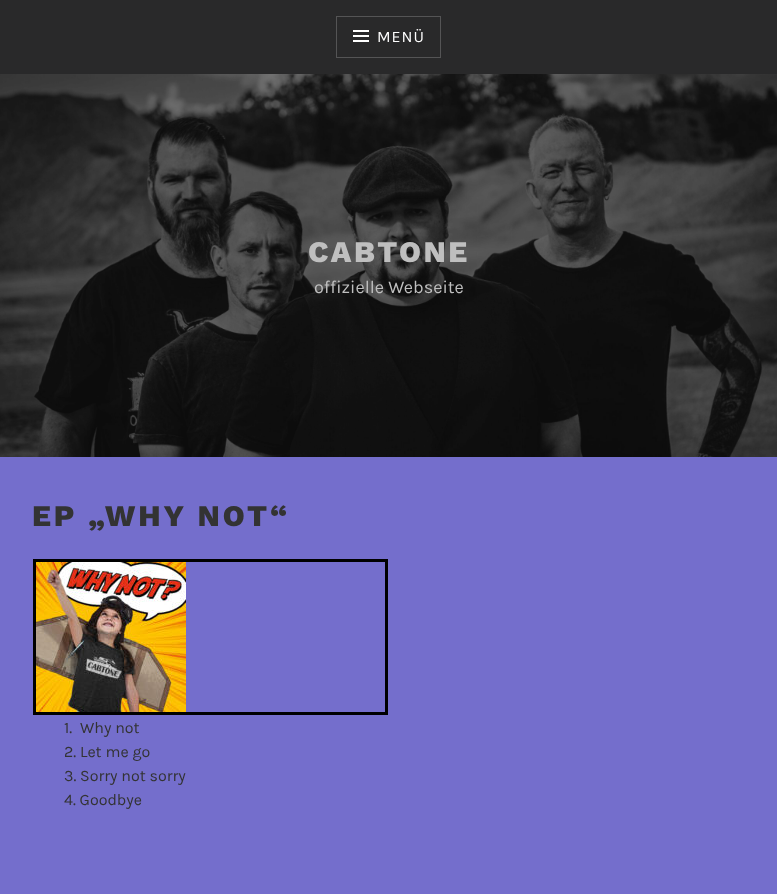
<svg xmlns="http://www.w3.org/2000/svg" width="777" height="894">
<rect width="100%" height="100%" fill="#746ecc"/>
<rect width="777" height="74" fill="#29292a"/>
<rect x="336.5" y="16.5" width="104" height="41" fill="none" stroke="#545455"/>
<image x="353" y="30" width="16" height="12" href="media/1.png"/>
<text x="377" y="42" style="font-family:Karla;font-size:16px;letter-spacing:1px;fill:#fff">MENÜ</text>
<image x="0" y="74" width="777" height="383" href="media/2.png"/>
<text x="308" y="262" style="font-family:Work Sans;font-size:30px;font-weight:800;letter-spacing:2.5px;fill:#bfbfbf">CABTONE</text>
<text x="314" y="293" style="font-family:Karla;font-size:18px;fill:#bfbfbf">offizielle Webseite</text>
<text x="32" y="526" style="font-family:Work Sans;font-size:30px;font-weight:800;letter-spacing:3px;fill:#333">EP „WHY NOT“</text>
<rect x="34.5" y="560.5" width="352" height="153" fill="none" stroke="#000" stroke-width="3"/>
<image x="36" y="562" width="150" height="150" href="media/3.png"/>
<text x="64" y="733" style="font-family:Karla;font-size:16px;fill:#333">1.</text>
<text x="80" y="733" style="font-family:Karla;font-size:16px;fill:#333">Why not</text>
<text x="64" y="757" style="font-family:Karla;font-size:16px;fill:#333">2. Let me go</text>
<text x="64" y="781" style="font-family:Karla;font-size:16px;fill:#333">3. Sorry not sorry</text>
<text x="64" y="805" style="font-family:Karla;font-size:16px;fill:#333">4. Goodbye</text>
</svg>
